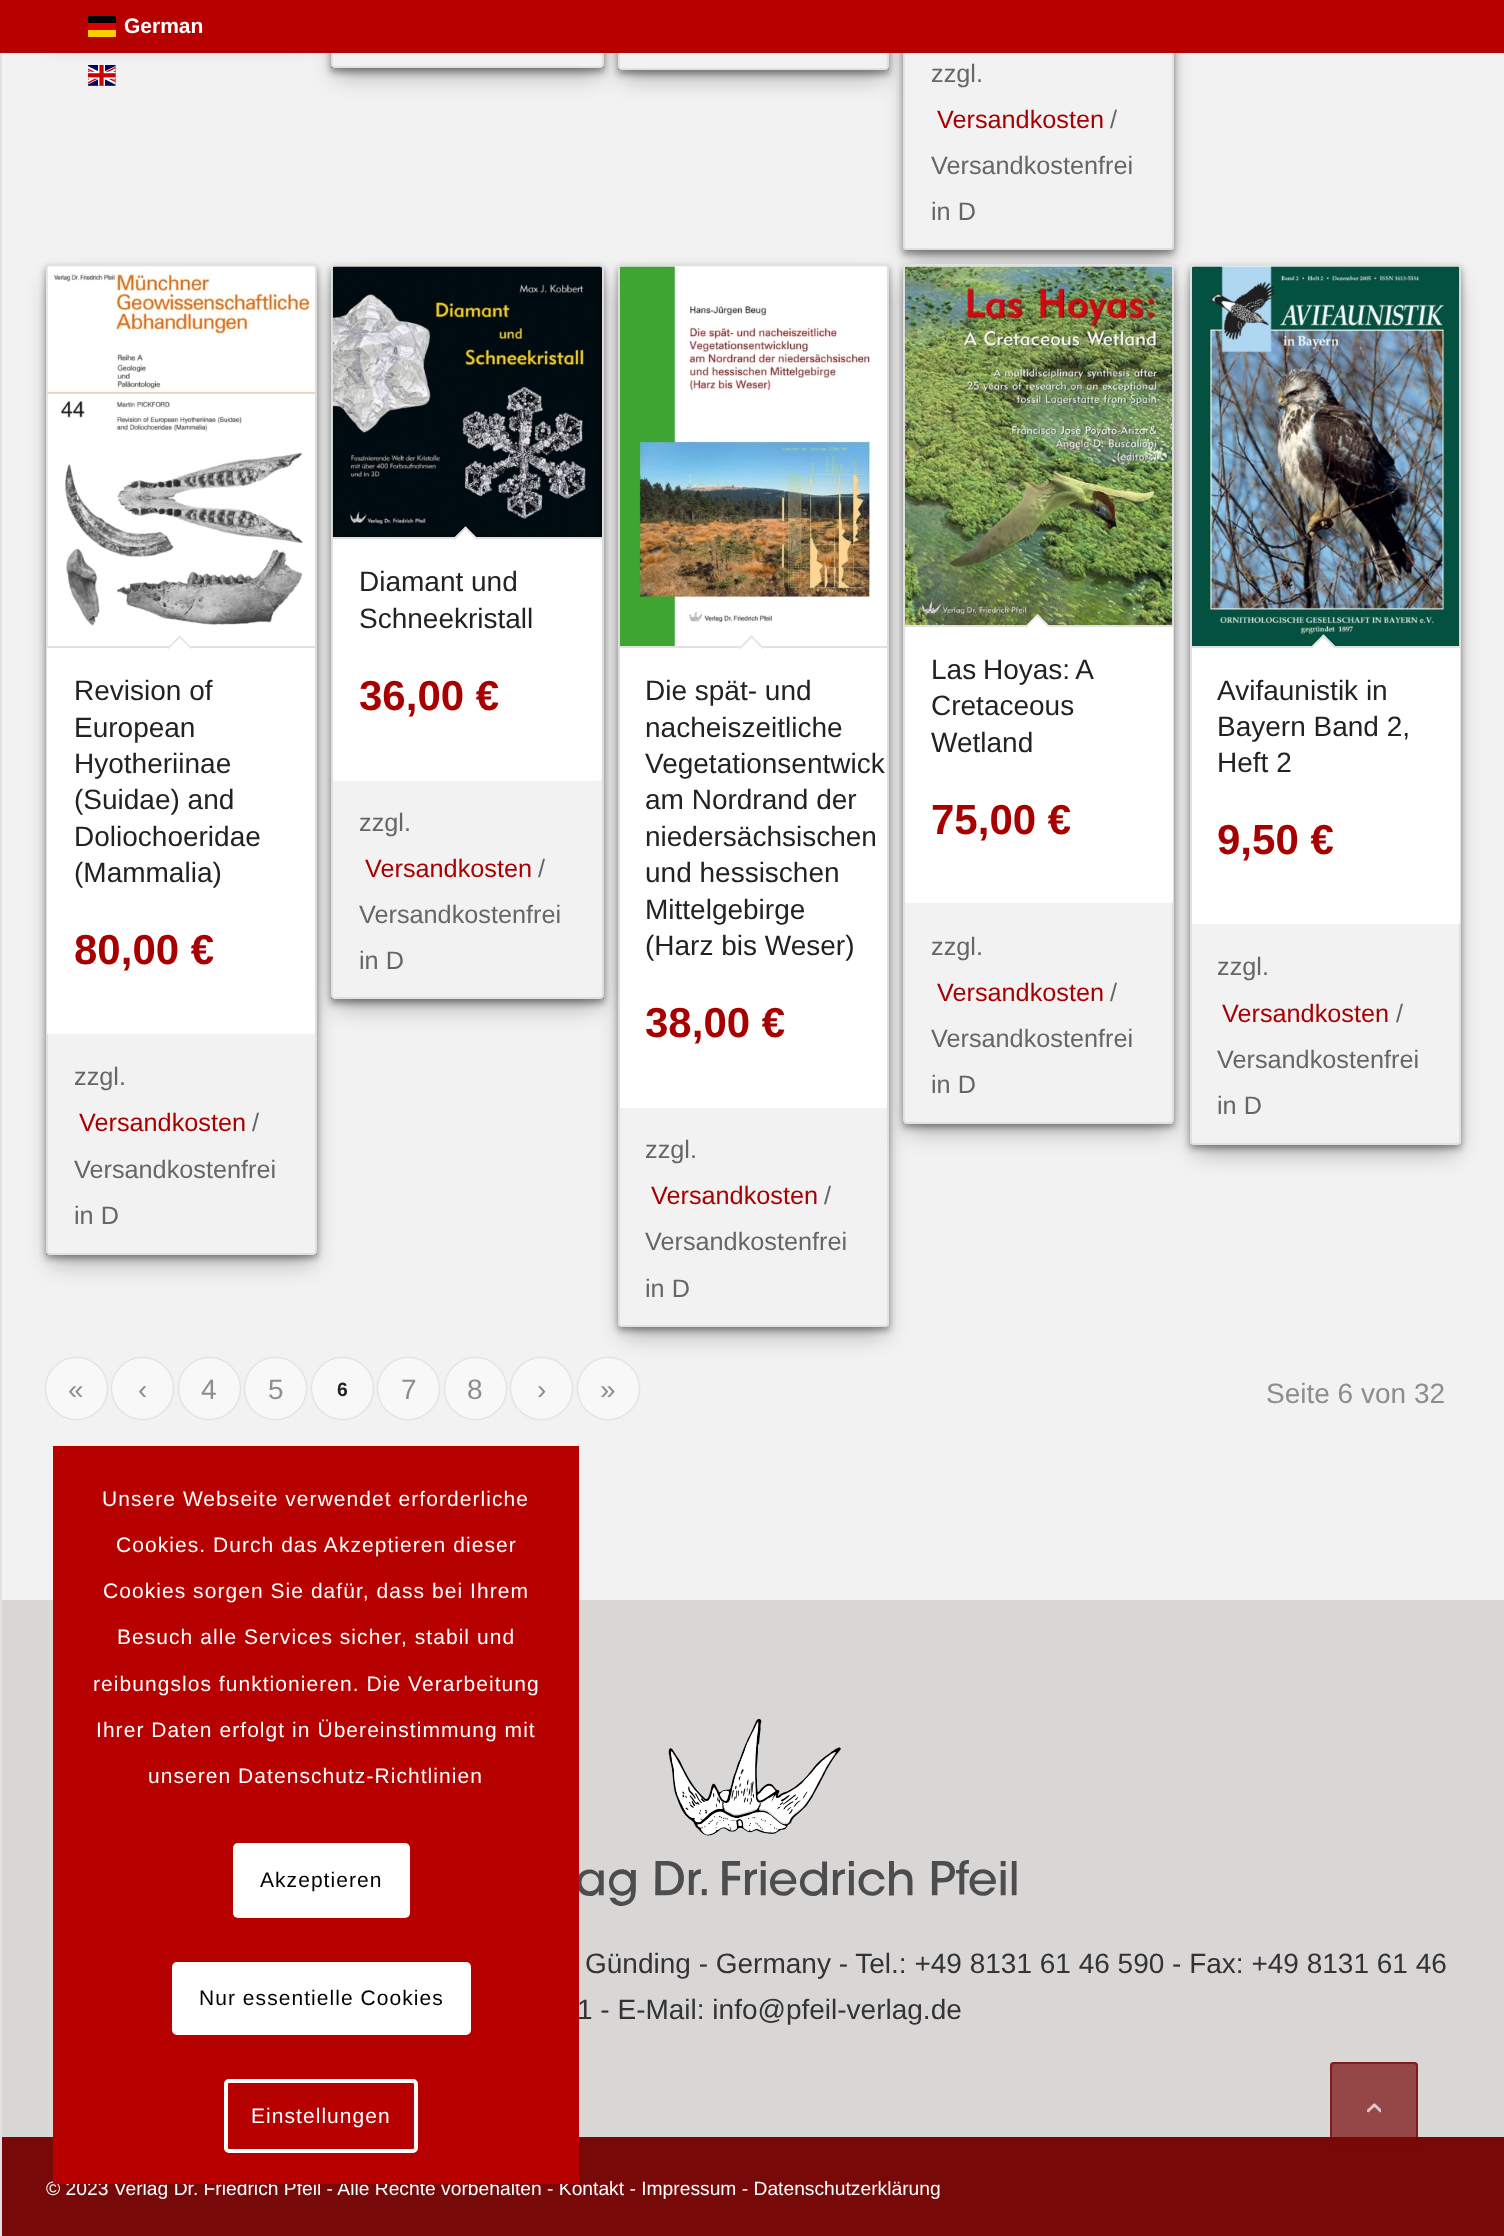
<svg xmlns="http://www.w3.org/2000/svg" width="1504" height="2236">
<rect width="100%" height="100%" fill="#e1e1e1"/>
<rect x="2" y="53" width="1502" height="1547" fill="#f2f2f2"/>
<rect x="51" y="-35" width="261" height="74" fill="#0000004d" filter="blur(11.5px)"/>
<rect x="336" y="-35" width="263" height="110" fill="#0000004d" filter="blur(11.5px)"/>
<rect x="331" y="-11" width="273" height="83" fill="#00000066" filter="blur(3.5px)"/>
<rect x="331" y="64" width="273" height="4" fill="#00000033"/>
<rect x="332" y="-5" width="271" height="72" rx="3" fill="#f2f2f2" stroke="#e1e1e1" stroke-width="2"/>
<rect x="623" y="-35" width="261" height="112" fill="#0000004d" filter="blur(11.5px)"/>
<rect x="618" y="-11" width="271" height="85" fill="#00000066" filter="blur(3.5px)"/>
<rect x="618" y="66" width="271" height="4" fill="#00000033"/>
<rect x="619" y="-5" width="269" height="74" rx="3" fill="#f2f2f2" stroke="#e1e1e1" stroke-width="2"/>
<rect x="908" y="-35" width="261" height="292" fill="#0000004d" filter="blur(11.5px)"/>
<rect x="903" y="-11" width="271" height="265" fill="#00000066" filter="blur(3.5px)"/>
<rect x="903" y="246" width="271" height="4" fill="#c2c2c2"/>
<rect x="904" y="-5" width="269" height="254" rx="3" fill="#f2f2f2" stroke="#e1e1e1" stroke-width="2"/>
<rect width="1504" height="53" fill="#b70000"/>
<rect x="88" y="30" width="28" height="7" fill="#ffce00"/>
<rect x="88" y="16" width="28" height="7" fill="#000"/>
<rect x="88" y="23" width="28" height="7" fill="#d00"/>
<text x="124" y="33" style="font-family:Liberation Sans;font-size:21px;font-weight:bold;fill:#fff">German</text>
<image x="88" y="65" width="28" height="21" href="media/1.png"/>
<text x="931" y="82" style="font-family:Liberation Sans;font-size:25.25px;fill:#666">zzgl.</text>
<text x="937" y="128" style="font-family:Liberation Sans;font-size:25.25px;fill:#a80000">Versandkosten</text>
<text x="1110" y="128" style="font-family:Liberation Sans;font-size:25.25px;fill:#666">/</text>
<text x="931" y="174" style="font-family:Liberation Sans;font-size:25.25px;fill:#666">Versandkostenfrei</text>
<text x="931" y="220" style="font-family:Liberation Sans;font-size:25.25px;fill:#666">in D</text>
<rect x="51" y="282" width="261" height="980" fill="#0000004d" filter="blur(11.5px)"/>
<rect x="46" y="268" width="271" height="990" fill="#00000066" filter="blur(3.5px)"/>
<rect x="46" y="1251" width="271" height="4" fill="#00000033"/>
<rect x="47" y="265" width="269" height="989" rx="3" fill="#f2f2f2" stroke="#e1e1e1" stroke-width="2"/>
<image x="47" y="266" width="268" height="380" href="media/2.png"/>
<path d="M47 646h268v386c0 1-1 2-2 2h-264c-1 0-2-1-2-2z" fill="#fff"/>
<rect x="47" y="646" width="268" height="2" fill="#e1e1e1"/>
<path d="M179.5 635.5l12.5 12.5l-12.5 12l-12-12z" fill="#fff"/>
<path d="M179.5 635.5l12.5 12.5l-1 1l-12.5-12.5z" fill="#e1e1e1"/>
<path d="M179.5 635.5l1.5 1l-12.5 12.5l-1-1z" fill="#e1e1e1"/>
<text x="74" y="700" style="font-family:Liberation Sans;font-size:28px;fill:#222">Revision of</text>
<text x="74" y="737" style="font-family:Liberation Sans;font-size:28px;fill:#222">European</text>
<text x="74" y="773" style="font-family:Liberation Sans;font-size:28px;fill:#222">Hyotheriinae</text>
<text x="74" y="809" style="font-family:Liberation Sans;font-size:28px;fill:#222">(Suidae) and</text>
<text x="74" y="846" style="font-family:Liberation Sans;font-size:28px;fill:#222">Doliochoeridae</text>
<text x="74" y="882" style="font-family:Liberation Sans;font-size:28px;fill:#222">(Mammalia)</text>
<text x="74" y="964" style="font-family:Liberation Sans;font-size:42px;font-weight:bold;fill:#a80000">80,00 €</text>
<text x="74" y="1085" style="font-family:Liberation Sans;font-size:25.25px;fill:#666">zzgl.</text>
<text x="79" y="1131" style="font-family:Liberation Sans;font-size:25.25px;fill:#a80000">Versandkosten</text>
<text x="252" y="1131" style="font-family:Liberation Sans;font-size:25.25px;fill:#666">/</text>
<text x="74" y="1178" style="font-family:Liberation Sans;font-size:25.25px;fill:#666">Versandkostenfrei</text>
<text x="74" y="1224" style="font-family:Liberation Sans;font-size:25.25px;fill:#666">in D</text>
<rect x="336" y="282" width="263" height="724" fill="#0000004d" filter="blur(11.5px)"/>
<rect x="331" y="268" width="273" height="735" fill="#00000066" filter="blur(3.5px)"/>
<rect x="331" y="995" width="273" height="4" fill="#00000033"/>
<rect x="332" y="265" width="271" height="733" rx="3" fill="#f2f2f2" stroke="#e1e1e1" stroke-width="2"/>
<image x="332" y="266" width="270" height="271" href="media/3.png"/>
<path d="M333 537h269v242c0 1-1 2-2 2h-265c-1 0-2-1-2-2z" fill="#fff"/>
<rect x="333" y="537" width="269" height="2" fill="#e1e1e1"/>
<path d="M465.5 526.5l12.5 12.5l-12.5 12.5l-12.5-12.5z" fill="#fff"/>
<path d="M465.5 526.5l12.5 12.5l-1.5 1l-12-12z" fill="#e1e1e1"/>
<path d="M465.5 526.5l1.5 1.5l-12.5 12l-1.5-1z" fill="#e1e1e1"/>
<text x="359" y="591" style="font-family:Liberation Sans;font-size:28px;fill:#222">Diamant und</text>
<text x="359" y="628" style="font-family:Liberation Sans;font-size:28px;fill:#222">Schneekristall</text>
<text x="359" y="710" style="font-family:Liberation Sans;font-size:42px;font-weight:bold;fill:#a80000">36,00 €</text>
<text x="359" y="831" style="font-family:Liberation Sans;font-size:25.25px;fill:#666">zzgl.</text>
<text x="365" y="877" style="font-family:Liberation Sans;font-size:25.25px;fill:#a80000">Versandkosten</text>
<text x="538" y="877" style="font-family:Liberation Sans;font-size:25.25px;fill:#666">/</text>
<text x="359" y="923" style="font-family:Liberation Sans;font-size:25.25px;fill:#666">Versandkostenfrei</text>
<text x="359" y="969" style="font-family:Liberation Sans;font-size:25.25px;fill:#666">in D</text>
<rect x="623" y="282" width="261" height="1052" fill="#0000004d" filter="blur(11.5px)"/>
<rect x="618" y="268" width="271" height="1062" fill="#00000066" filter="blur(3.5px)"/>
<rect x="618" y="1323" width="271" height="3" fill="#c2c2c2"/>
<rect x="619" y="265" width="269" height="1061" rx="3" fill="#f2f2f2" stroke="#e1e1e1" stroke-width="2"/>
<image x="619" y="266" width="268" height="380" href="media/4.png"/>
<path d="M620 646h267v460c0 1-1 2-2 2h-263c-1 0-2-1-2-2z" fill="#fff"/>
<rect x="620" y="646" width="267" height="2" fill="#e1e1e1"/>
<path d="M751.5 635.5l12.5 12.5l-12.5 12l-12.5-12z" fill="#fff"/>
<path d="M751.5 635.5l12.5 12.5l-1.5 1l-12-12.5z" fill="#e1e1e1"/>
<path d="M751.5 635.5l1.5 1l-12.5 12.5l-1.5-1z" fill="#e1e1e1"/>
<text x="645" y="700" style="font-family:Liberation Sans;font-size:28px;fill:#222">Die spät- und</text>
<text x="645" y="737" style="font-family:Liberation Sans;font-size:28px;fill:#222">nacheiszeitliche</text>
<text x="645" y="773" style="font-family:Liberation Sans;font-size:28px;fill:#222">Vegetationsentwick</text>
<text x="645" y="809" style="font-family:Liberation Sans;font-size:28px;fill:#222">am Nordrand der</text>
<text x="645" y="846" style="font-family:Liberation Sans;font-size:28px;fill:#222">niedersächsischen</text>
<text x="645" y="882" style="font-family:Liberation Sans;font-size:28px;fill:#222">und hessischen</text>
<text x="645" y="919" style="font-family:Liberation Sans;font-size:28px;fill:#222">Mittelgebirge</text>
<text x="645" y="955" style="font-family:Liberation Sans;font-size:28px;fill:#222">(Harz bis Weser)</text>
<text x="645" y="1037" style="font-family:Liberation Sans;font-size:42px;font-weight:bold;fill:#a80000">38,00 €</text>
<text x="645" y="1158" style="font-family:Liberation Sans;font-size:25.25px;fill:#666">zzgl.</text>
<text x="651" y="1204" style="font-family:Liberation Sans;font-size:25.25px;fill:#a80000">Versandkosten</text>
<text x="824" y="1204" style="font-family:Liberation Sans;font-size:25.25px;fill:#666">/</text>
<text x="645" y="1250" style="font-family:Liberation Sans;font-size:25.25px;fill:#666">Versandkostenfrei</text>
<text x="645" y="1297" style="font-family:Liberation Sans;font-size:25.25px;fill:#666">in D</text>
<rect x="908" y="282" width="261" height="849" fill="#0000004d" filter="blur(11.5px)"/>
<rect x="903" y="268" width="271" height="859" fill="#00000066" filter="blur(3.5px)"/>
<rect x="903" y="1120" width="271" height="3" fill="#00000033"/>
<rect x="904" y="265" width="269" height="858" rx="3" fill="#f2f2f2" stroke="#e1e1e1" stroke-width="2"/>
<image x="905" y="266" width="268" height="359" href="media/5.png"/>
<path d="M905 625h268v276c0 1-1 2-2 2h-264c-1 0-2-1-2-2z" fill="#fff"/>
<rect x="905" y="625" width="268" height="2" fill="#e1e1e1"/>
<path d="M1037.5 614l12.5 12.5l-12.5 12l-12.5-12z" fill="#fff"/>
<path d="M1037.5 614l12.5 12.5l-1.5 1l-12.5-12.5z" fill="#e1e1e1"/>
<path d="M1037.5 614l1 1l-12 12.5l-1.5-1z" fill="#e1e1e1"/>
<text x="931" y="679" word-spacing="-1" style="font-family:Liberation Sans;font-size:28px;fill:#222">Las Hoyas: A</text>
<text x="931" y="715" style="font-family:Liberation Sans;font-size:28px;fill:#222">Cretaceous</text>
<text x="931" y="752" style="font-family:Liberation Sans;font-size:28px;fill:#222">Wetland</text>
<text x="931" y="834" style="font-family:Liberation Sans;font-size:42px;font-weight:bold;fill:#a80000">75,00 €</text>
<text x="931" y="955" style="font-family:Liberation Sans;font-size:25.25px;fill:#666">zzgl.</text>
<text x="937" y="1001" style="font-family:Liberation Sans;font-size:25.25px;fill:#a80000">Versandkosten</text>
<text x="1110" y="1001" style="font-family:Liberation Sans;font-size:25.25px;fill:#666">/</text>
<text x="931" y="1047" style="font-family:Liberation Sans;font-size:25.25px;fill:#666">Versandkostenfrei</text>
<text x="931" y="1093" style="font-family:Liberation Sans;font-size:25.25px;fill:#666">in D</text>
<rect x="1195" y="282" width="261" height="870" fill="#0000004d" filter="blur(11.5px)"/>
<rect x="1190" y="268" width="271" height="880" fill="#00000066" filter="blur(3.5px)"/>
<rect x="1190" y="1141" width="271" height="3" fill="#c2c2c2"/>
<rect x="1191" y="265" width="269" height="879" rx="3" fill="#f2f2f2" stroke="#e1e1e1" stroke-width="2"/>
<image x="1192" y="266" width="268" height="380" href="media/6.png"/>
<path d="M1192 646h268v276c0 1-1 2-2 2h-264c-1 0-2-1-2-2z" fill="#fff"/>
<rect x="1192" y="646" width="268" height="2" fill="#e1e1e1"/>
<path d="M1323.5 634.5l12.5 12.5l-12.5 12.5l-12.5-12.5z" fill="#fff"/>
<path d="M1323.5 634.5l12.5 12.5l-1.5 1.5l-12.5-12.5z" fill="#e1e1e1"/>
<path d="M1323.5 634.5l1 1.5l-12.5 12.5l-1-1.5z" fill="#e1e1e1"/>
<text x="1217" y="700" style="font-family:Liberation Sans;font-size:28px;fill:#222">Avifaunistik in</text>
<text x="1217" y="736" style="font-family:Liberation Sans;font-size:28px;fill:#222">Bayern Band 2,</text>
<text x="1217" y="772" style="font-family:Liberation Sans;font-size:28px;fill:#222">Heft 2</text>
<text x="1217" y="854" style="font-family:Liberation Sans;font-size:42px;font-weight:bold;fill:#a80000">9,50 €</text>
<text x="1217" y="975" style="font-family:Liberation Sans;font-size:25.25px;fill:#666">zzgl.</text>
<text x="1222" y="1022" style="font-family:Liberation Sans;font-size:25.25px;fill:#a80000">Versandkosten</text>
<text x="1396" y="1022" style="font-family:Liberation Sans;font-size:25.25px;fill:#666">/</text>
<text x="1217" y="1068" style="font-family:Liberation Sans;font-size:25.25px;fill:#666">Versandkostenfrei</text>
<text x="1217" y="1114" style="font-family:Liberation Sans;font-size:25.25px;fill:#666">in D</text>
<rect x="46" y="1358" width="61" height="61" rx="30.5" fill="#00000033" filter="blur(1px)"/>
<circle cx="76.5" cy="1388.5" r="30.5" fill="#f8f8f8"/>
<text x="68" y="1399" style="font-family:Liberation Sans;font-size:28px;fill:#8d8d8d">«</text>
<rect x="112" y="1358" width="61" height="61" rx="30.5" fill="#00000033" filter="blur(1px)"/>
<circle cx="142.5" cy="1388.5" r="30.5" fill="#f8f8f8"/>
<text x="138" y="1399" style="font-family:Liberation Sans;font-size:28px;fill:#8d8d8d">‹</text>
<rect x="179" y="1358" width="61" height="61" rx="30.5" fill="#00000033" filter="blur(1px)"/>
<circle cx="209.5" cy="1388.5" r="30.5" fill="#f8f8f8"/>
<text x="201" y="1399" style="font-family:Liberation Sans;font-size:28px;fill:#8d8d8d">4</text>
<rect x="245" y="1358" width="61" height="61" rx="30.5" fill="#00000033" filter="blur(1px)"/>
<circle cx="275.5" cy="1388.5" r="30.5" fill="#f8f8f8"/>
<text x="268" y="1399" style="font-family:Liberation Sans;font-size:28px;fill:#8d8d8d">5</text>
<rect x="312" y="1358" width="61" height="61" rx="30.5" fill="#00000033" filter="blur(1px)"/>
<circle cx="342.5" cy="1388.5" r="30.5" fill="#f8f8f8"/>
<text x="337" y="1396" style="font-family:Liberation Sans;font-size:19.25px;font-weight:bold;fill:#222">6</text>
<rect x="378" y="1358" width="61" height="61" rx="30.5" fill="#00000033" filter="blur(1px)"/>
<circle cx="408.5" cy="1388.5" r="30.5" fill="#f8f8f8"/>
<text x="401" y="1399" style="font-family:Liberation Sans;font-size:28px;fill:#8d8d8d">7</text>
<rect x="445" y="1358" width="61" height="61" rx="30.5" fill="#00000033" filter="blur(1px)"/>
<circle cx="475.5" cy="1388.5" r="30.5" fill="#f8f8f8"/>
<text x="467" y="1399" style="font-family:Liberation Sans;font-size:28px;fill:#8d8d8d">8</text>
<rect x="511" y="1358" width="61" height="61" rx="30.5" fill="#00000033" filter="blur(1px)"/>
<circle cx="541.5" cy="1388.5" r="30.5" fill="#f8f8f8"/>
<text x="537" y="1399" style="font-family:Liberation Sans;font-size:28px;fill:#8d8d8d">›</text>
<rect x="578" y="1358" width="61" height="61" rx="30.5" fill="#00000033" filter="blur(1px)"/>
<circle cx="608.5" cy="1388.5" r="30.5" fill="#f8f8f8"/>
<text x="600" y="1399" style="font-family:Liberation Sans;font-size:28px;fill:#8d8d8d">»</text>
<text x="1266" y="1403" style="font-family:Liberation Sans;font-size:28px;fill:#8d8d8d">Seite 6 von 32</text>
<rect x="2" y="1600" width="1502" height="537" fill="#d9d6d6"/>
<image x="579" y="1719" width="438" height="187" href="media/7.png"/>
<text x="585" y="1973" style="font-family:Liberation Sans;font-size:28px;fill:#333">Günding - Germany - Tel.: +49 8131 61 46 590 - Fax: +49 8131 61 46</text>
<text x="577" y="2019" style="font-family:Liberation Sans;font-size:28px;fill:#333">1 - E-Mail: info@pfeil-verlag.de</text>
<rect x="2" y="2137" width="1502" height="99" fill="#780909"/>
<text x="46" y="2195" style="font-family:Liberation Sans;font-size:19.25px;fill:#fff">© 2023 Verlag Dr. Friedrich Pfeil - Alle Rechte vorbehalten - Kontakt - Impressum - Datenschutzerklärung</text>
<rect x="53" y="1446" width="526" height="738" fill="#b70000"/>
<text x="102" y="1506" style="font-family:Liberation Sans;font-size:21px;letter-spacing:1.05px;fill:#fff">Unsere Webseite verwendet erforderliche</text>
<text x="116" y="1552" style="font-family:Liberation Sans;font-size:21px;letter-spacing:1.05px;fill:#fff">Cookies. Durch das Akzeptieren dieser</text>
<text x="103" y="1598" style="font-family:Liberation Sans;font-size:21px;letter-spacing:1.05px;fill:#fff">Cookies sorgen Sie dafür, dass bei Ihrem</text>
<text x="117" y="1644" style="font-family:Liberation Sans;font-size:21px;letter-spacing:1.05px;fill:#fff">Besuch alle Services sicher, stabil und</text>
<text x="93" y="1691" style="font-family:Liberation Sans;font-size:21px;letter-spacing:1.05px;fill:#fff">reibungslos funktionieren. Die Verarbeitung</text>
<text x="96" y="1737" style="font-family:Liberation Sans;font-size:21px;letter-spacing:1.05px;fill:#fff">Ihrer Daten erfolgt in Übereinstimmung mit</text>
<text x="148" y="1783" style="font-family:Liberation Sans;font-size:21px;letter-spacing:1.05px;fill:#fff">unseren Datenschutz-Richtlinien</text>
<rect x="233" y="1843" width="177" height="75" rx="5" fill="#fff"/>
<text x="260" y="1887" style="font-family:Liberation Sans;font-size:21px;letter-spacing:1.05px;fill:#000">Akzeptieren</text>
<rect x="172" y="1962" width="299" height="73" rx="5" fill="#fff"/>
<text x="199" y="2005" style="font-family:Liberation Sans;font-size:21px;letter-spacing:1.05px;fill:#000">Nur essentielle Cookies</text>
<rect x="226" y="2081" width="190" height="70" rx="3" fill="none" stroke="#fff" stroke-width="4"/>
<text x="251" y="2123" style="font-family:Liberation Sans;font-size:21px;letter-spacing:1.05px;fill:#fff">Einstellungen</text>
<rect x="1330" y="2062" width="88" height="87" rx="4" fill="#780909b3"/>
<rect x="1331" y="2063" width="86" height="85" rx="3" fill="none" stroke="#780909b3" stroke-width="2"/>
<image x="1367" y="2103" width="14" height="10" href="media/8.png"/>
</svg>
